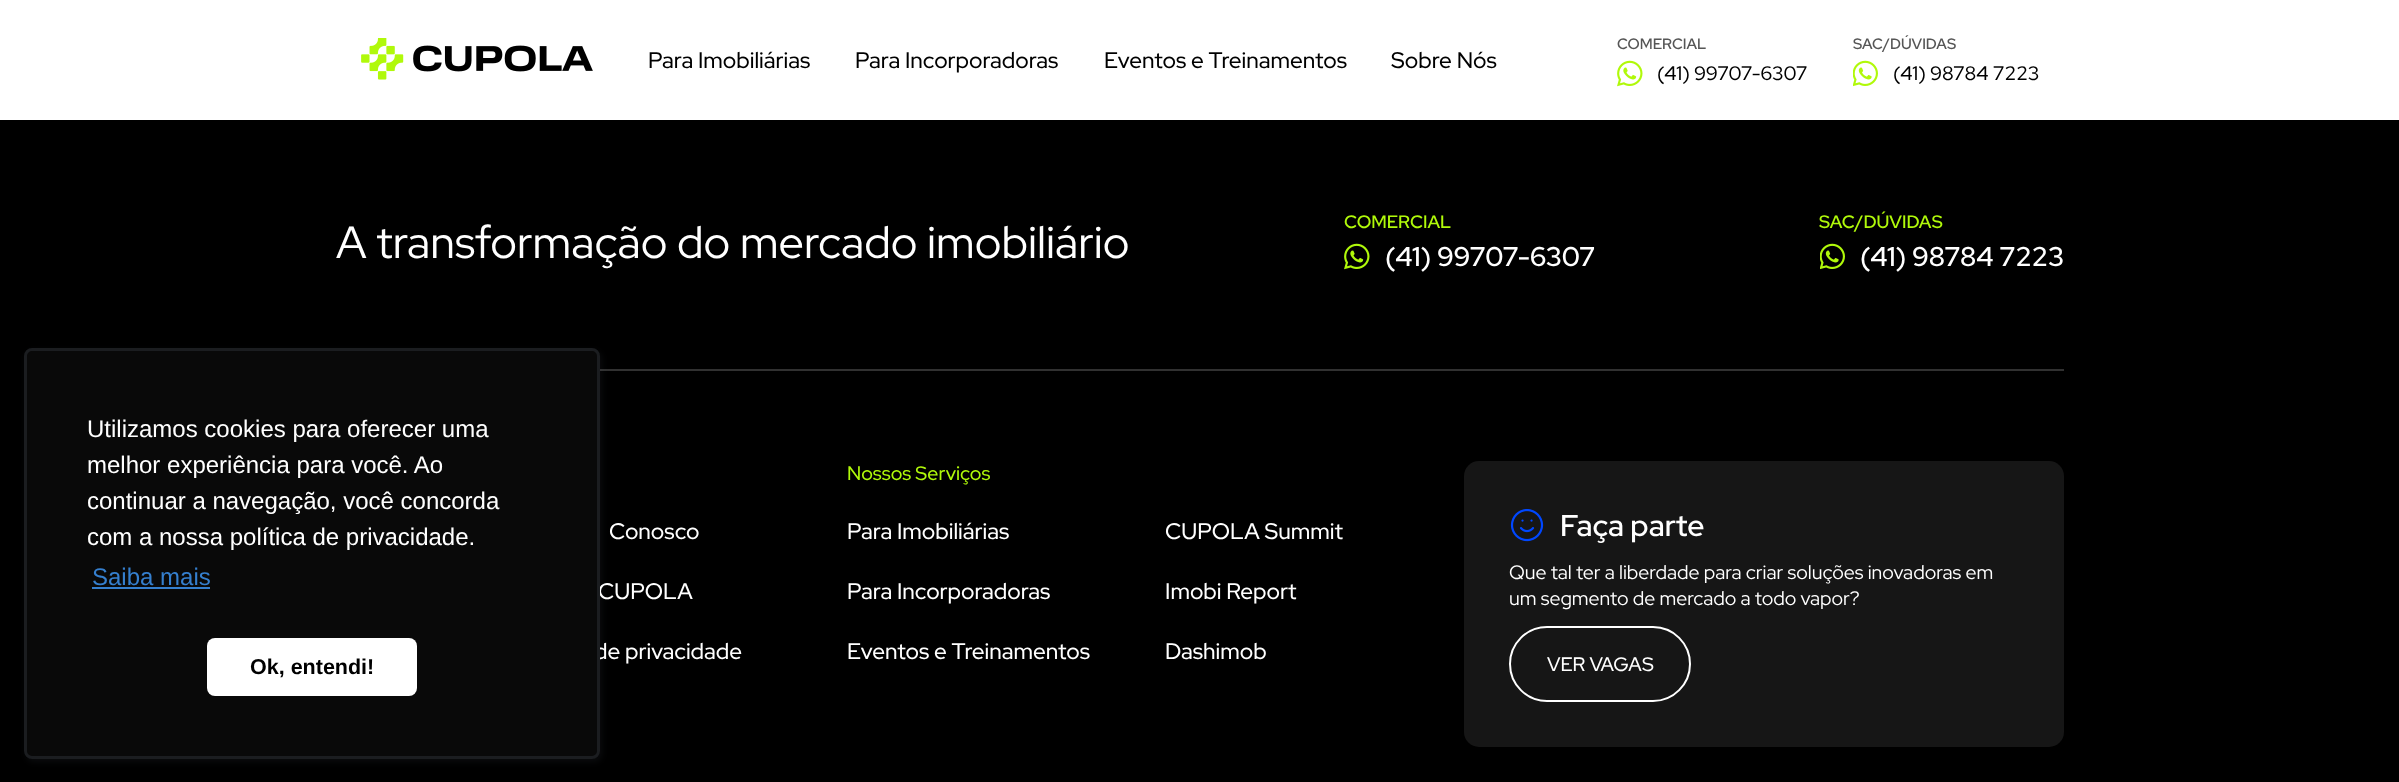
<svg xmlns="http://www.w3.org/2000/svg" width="2399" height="782">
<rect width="100%" height="100%" fill="#fff"/>
<image x="361" y="38" width="232" height="42" href="media/1.png"/>
<text x="648" y="68" style="font-family:Red Hat Display;font-size:22.5px;font-weight:500;fill:#000">Para Imobiliárias</text>
<text x="855" y="68" style="font-family:Red Hat Display;font-size:22.5px;font-weight:500;fill:#000">Para Incorporadoras</text>
<text x="1104" y="68" style="font-family:Red Hat Display;font-size:22.5px;font-weight:500;fill:#000">Eventos e Treinamentos</text>
<text x="1391" y="68" style="font-family:Red Hat Display;font-size:22.5px;font-weight:500;fill:#000">Sobre Nós</text>
<text x="1617" y="49" style="font-family:Red Hat Display;font-size:15px;font-weight:600;fill:#565656">COMERCIAL</text>
<image x="1617" y="60" width="26" height="27" href="media/2.png"/>
<text x="1657" y="80" style="font-family:Red Hat Display;font-size:19.5px;font-weight:500;fill:#000">(41) 99707-6307</text>
<text x="1853" y="49" style="font-family:Red Hat Display;font-size:15px;font-weight:600;fill:#565656">SAC/DÚVIDAS</text>
<image x="1853" y="60" width="25" height="27" href="media/3.png"/>
<text x="1893" y="80" style="font-family:Red Hat Display;font-size:19.5px;font-weight:500;fill:#000">(41) 98784 7223</text>
<rect y="120" width="2399" height="662" fill="#000"/>
<rect x="600" y="369" width="1464" height="2" fill="#313131"/>
<rect x="26" y="351" width="576" height="411" rx="8" fill="#636e7c1a" filter="blur(3px)"/>
<text x="598" y="599" style="font-family:Red Hat Display;font-size:22.5px;font-weight:500;fill:#fff">CUPOLA</text>
<text x="594" y="659" style="font-family:Red Hat Display;font-size:22.5px;font-weight:500;fill:#fff">de privacidade</text>
<rect x="24" y="348" width="576" height="411" rx="8" fill="#090909"/>
<rect x="25.5" y="349.5" width="573" height="408" rx="6.5" fill="none" stroke="#636e7c33" stroke-width="3"/>
<text x="87" y="437" style="font-family:Liberation Sans;font-size:24px;fill:#fff">Utilizamos cookies para oferecer uma</text>
<text x="87" y="473" style="font-family:Liberation Sans;font-size:24px;fill:#fff">melhor experiência para você. Ao</text>
<text x="87" y="509" style="font-family:Liberation Sans;font-size:24px;fill:#fff">continuar a navegação, você concorda</text>
<text x="87" y="545" style="font-family:Liberation Sans;font-size:24px;fill:#fff">com a nossa política de privacidade.</text>
<text x="92" y="585" style="font-family:Liberation Sans;font-size:24px;fill:#357fce">Saiba mais</text>
<rect x="92" y="587" width="118" height="2" fill="#357fce"/>
<rect x="207" y="638" width="210" height="58" rx="8" fill="#fff"/>
<text x="250" y="674" style="font-family:Liberation Sans;font-size:21.5px;font-weight:bold;fill:#000">Ok, entendi!</text>
<text x="336" y="258" style="font-family:Red Hat Display;font-size:45px;fill:#fff">A transformação do mercado imobiliário</text>
<text x="1344" y="228" style="font-family:Red Hat Display;font-size:18px;font-weight:600;fill:#b0f90a">COMERCIAL</text>
<image x="1344" y="243" width="26" height="27" href="media/4.png"/>
<text x="1385" y="266" style="font-family:Red Hat Display;font-size:27px;font-weight:600;fill:#fff">(41) 99707-6307</text>
<text x="1819" y="228" style="font-family:Red Hat Display;font-size:18px;font-weight:600;fill:#b0f90a">SAC/DÚVIDAS</text>
<image x="1820" y="243" width="25" height="27" href="media/5.png"/>
<text x="1860" y="266" style="font-family:Red Hat Display;font-size:27px;font-weight:600;fill:#fff">(41) 98784 7223</text>
<text x="609" y="539" style="font-family:Red Hat Display;font-size:22.5px;font-weight:500;fill:#fff">Conosco</text>
<text x="847" y="480" style="font-family:Red Hat Display;font-size:19.5px;font-weight:500;fill:#b0f90a">Nossos Serviços</text>
<text x="847" y="539" style="font-family:Red Hat Display;font-size:22.5px;font-weight:500;fill:#fff">Para Imobiliárias</text>
<text x="1165" y="539" style="font-family:Red Hat Display;font-size:22.5px;font-weight:500;fill:#fff">CUPOLA Summit</text>
<text x="847" y="599" style="font-family:Red Hat Display;font-size:22.5px;font-weight:500;fill:#fff">Para Incorporadoras</text>
<text x="1165" y="599" style="font-family:Red Hat Display;font-size:22.5px;font-weight:500;fill:#fff">Imobi Report</text>
<text x="847" y="659" style="font-family:Red Hat Display;font-size:22.5px;font-weight:500;fill:#fff">Eventos e Treinamentos</text>
<text x="1165" y="659" style="font-family:Red Hat Display;font-size:22.5px;font-weight:500;fill:#fff">Dashimob</text>
<rect x="1464" y="461" width="600" height="286" rx="15" fill="#161616"/>
<image x="1510" y="509" width="34" height="33" href="media/6.png"/>
<text x="1560" y="536" style="font-family:Red Hat Display;font-size:30px;font-weight:600;fill:#fff">Faça parte</text>
<text x="1509" y="579" style="font-family:Red Hat Display;font-size:19.5px;fill:#fff">Que tal ter a liberdade para criar soluções inovadoras em</text>
<text x="1509" y="605" style="font-family:Red Hat Display;font-size:19.5px;fill:#fff">um segmento de mercado a todo vapor?</text>
<rect x="1510" y="627" width="180" height="74" rx="37" fill="none" stroke="#fff" stroke-width="2"/>
<text x="1547" y="671" style="font-family:Red Hat Display;font-size:19.5px;font-weight:500;fill:#fff">VER VAGAS</text>
</svg>
